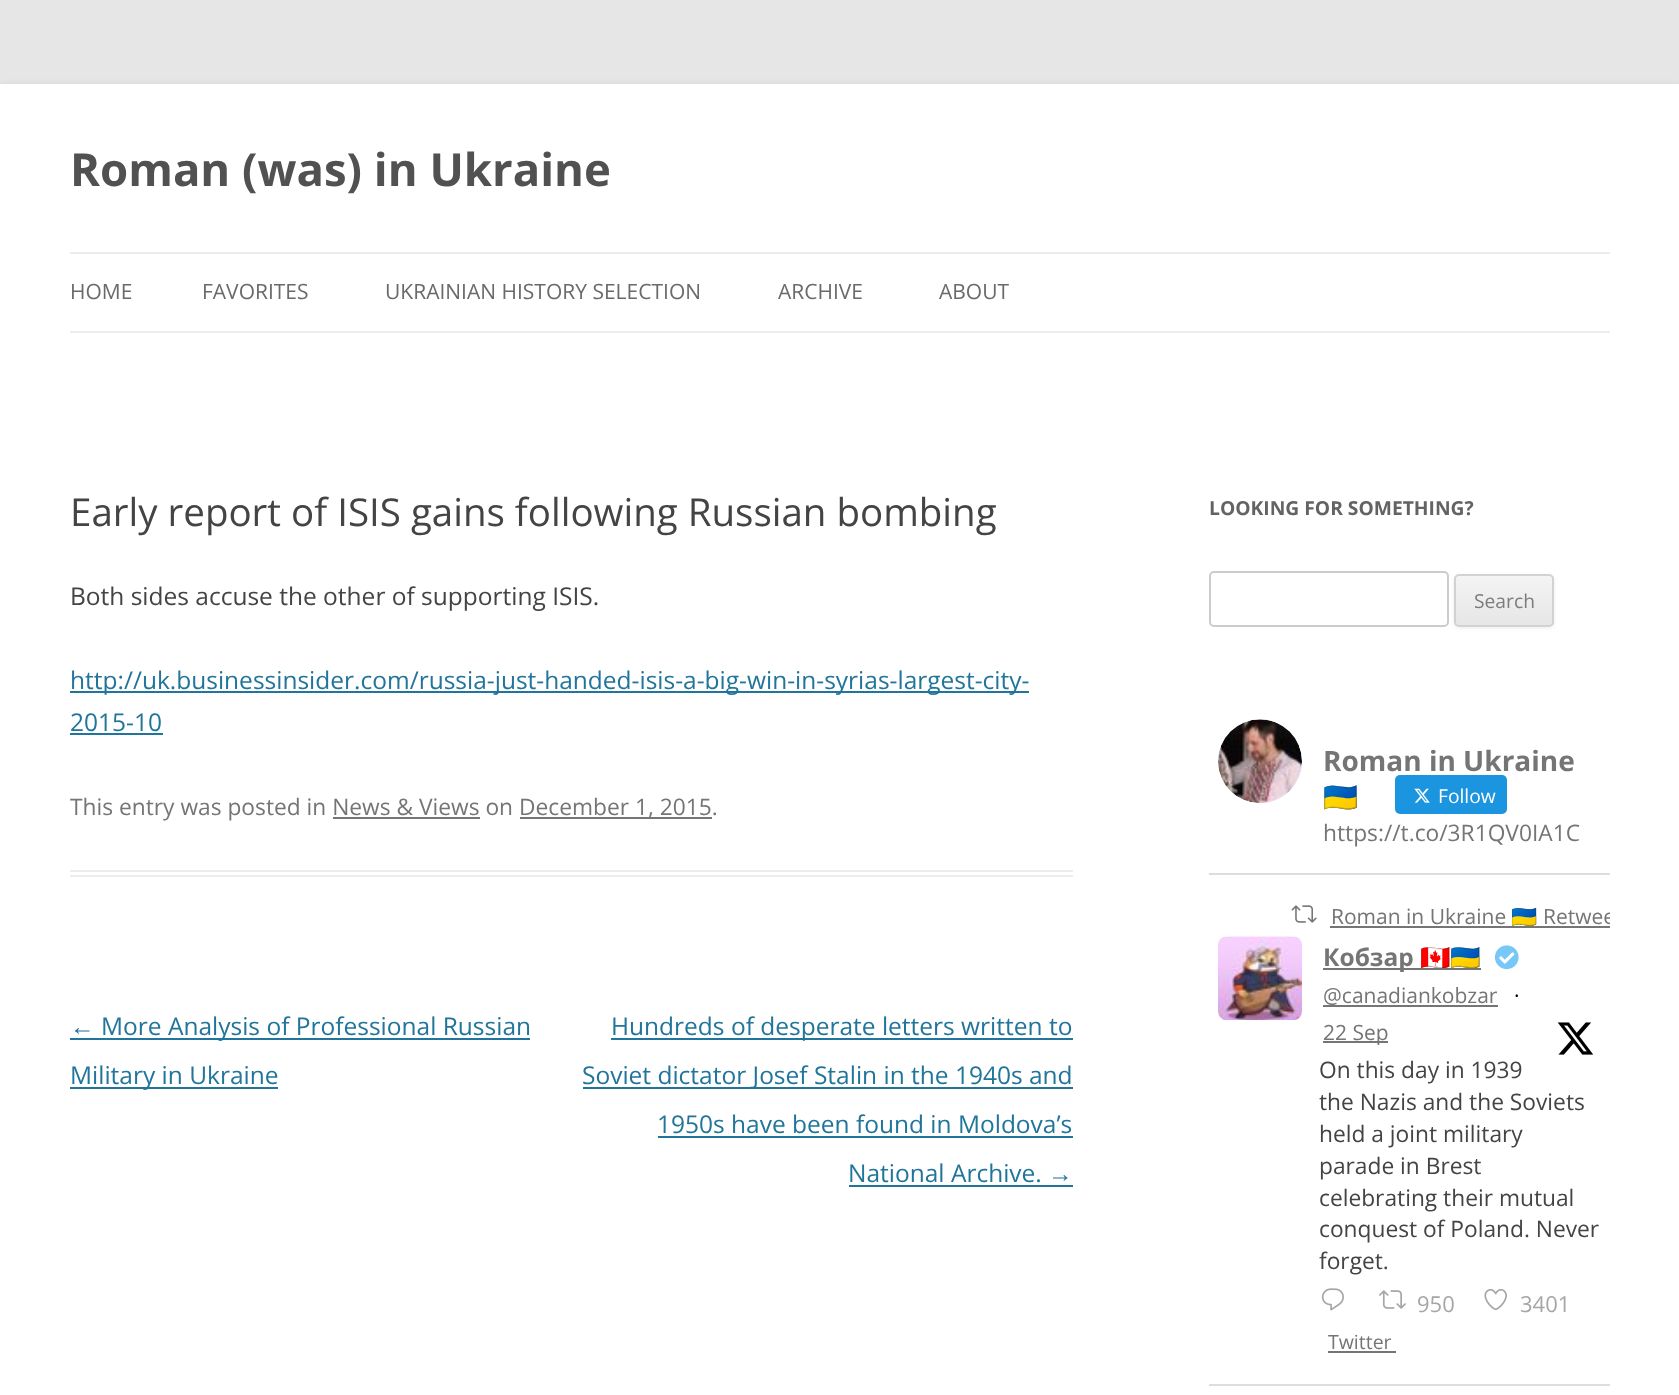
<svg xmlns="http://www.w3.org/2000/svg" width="1679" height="1395">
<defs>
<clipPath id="clip1"><rect x="1454" y="574" width="100" height="53" rx="5"/></clipPath>
<linearGradient id="g1" gradientUnits="userSpaceOnUse" x1="1504" y1="576" x2="1504" y2="625"><stop offset="0" stop-color="#f4f4f4"/><stop offset="1" stop-color="#e6e6e6"/></linearGradient>
<clipPath id="clip2"><rect x="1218" y="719" width="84" height="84" rx="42"/></clipPath>
<clipPath id="clip3"><rect x="1209" y="875" width="401" height="509"/></clipPath>
</defs>
<rect width="100%" height="100%" fill="#e6e6e6"/>
<rect y="88" width="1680" height="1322" fill="#6464644d" filter="blur(5px)"/>
<rect y="84" width="1679" height="1311" fill="#fff"/>
<text x="70" y="186" style="font-family:Open Sans;font-size:45.5px;font-weight:bold;fill:#515151">Roman (was) in Ukraine</text>
<rect x="70" y="252" width="1540" height="2" fill="#ededed"/>
<rect x="70" y="331" width="1540" height="2" fill="#ededed"/>
<text x="70" y="299" style="font-family:Open Sans;font-size:21px;fill:#6a6a6a">HOME</text>
<text x="202" y="299" style="font-family:Open Sans;font-size:21px;fill:#6a6a6a">FAVORITES</text>
<text x="385" y="299" style="font-family:Open Sans;font-size:21px;fill:#6a6a6a">UKRAINIAN HISTORY SELECTION</text>
<text x="778" y="299" style="font-family:Open Sans;font-size:21px;fill:#6a6a6a">ARCHIVE</text>
<text x="939" y="299" style="font-family:Open Sans;font-size:21px;fill:#6a6a6a">ABOUT</text>
<rect x="70" y="870" width="1003" height="2" fill="#ededed"/>
<rect x="70" y="875" width="1003" height="2" fill="#ededed"/>
<text x="70" y="526" style="font-family:Open Sans;font-size:38.5px;fill:#444">Early report of ISIS gains following Russian bombing</text>
<text x="70" y="605" style="font-family:Open Sans;font-size:24.5px;fill:#444">Both sides accuse the other of supporting ISIS.</text>
<rect x="70" y="691" width="959" height="2" fill="#21759b"/>
<text x="70" y="689" style="font-family:Open Sans;font-size:24.5px;fill:#21759b">http://uk.businessinsider.com/russia-just-handed-isis-a-big-win-in-syrias-largest-city-</text>
<text x="70" y="731" style="font-family:Open Sans;font-size:24.5px;fill:#21759b">2015-10</text>
<rect x="70" y="733" width="93" height="2" fill="#21759b"/>
<text x="70" y="815" style="font-family:Open Sans;font-size:22.75px;fill:#757575">This entry was posted in News &amp; Views on</text>
<rect x="520" y="817" width="192" height="2" fill="#757575"/>
<text x="519" y="815" style="font-family:Open Sans;font-size:22.75px;fill:#757575">December 1, 2015.</text>
<rect x="333" y="817" width="147" height="2" fill="#757575"/>
<text x="70" y="1035" style="font-family:Liberation Sans;font-size:24.5px;fill:#21759b">←</text>
<rect x="70" y="1038" width="460" height="2" fill="#21759b"/>
<text x="101" y="1035" style="font-family:Open Sans;font-size:24.5px;fill:#21759b">More Analysis of Professional Russian</text>
<rect x="70" y="1087" width="208" height="2" fill="#21759b"/>
<text x="70" y="1084" style="font-family:Open Sans;font-size:24.5px;fill:#21759b">Military in Ukraine</text>
<rect x="611" y="1038" width="462" height="2" fill="#21759b"/>
<text x="611" y="1035" style="font-family:Open Sans;font-size:24.5px;fill:#21759b">Hundreds of desperate letters written to</text>
<rect x="583" y="1087" width="490" height="2" fill="#21759b"/>
<text x="582" y="1084" style="font-family:Open Sans;font-size:24.5px;fill:#21759b">Soviet dictator Josef Stalin in the 1940s and</text>
<text x="657" y="1133" style="font-family:Open Sans;font-size:24.5px;fill:#21759b">1950s have been found in Moldova’s</text>
<rect x="658" y="1136" width="415" height="2" fill="#21759b"/>
<text x="848" y="1182" style="font-family:Open Sans;font-size:24.5px;fill:#21759b">National Archive.</text>
<text x="1048" y="1182" style="font-family:Liberation Sans;font-size:24.5px;fill:#21759b">→</text>
<rect x="849" y="1185" width="224" height="2" fill="#21759b"/>
<text x="1209" y="515" style="font-family:Open Sans;font-size:19.25px;font-weight:bold;fill:#636363">LOOKING FOR SOMETHING?</text>
<rect x="1210" y="572" width="238" height="54" rx="4" fill="none" stroke="#ccc" stroke-width="2"/>
<rect x="1454" y="576" width="100" height="52" rx="5" fill="#4040401a" filter="blur(2px)"/>
<g clip-path="url(#clip1)">
<rect x="1454" y="576" width="100" height="49" fill="url(#g1)"/>
</g>
<rect x="1455" y="575" width="98" height="51" rx="4" fill="none" stroke="#d2d2d2" stroke-width="2"/>
<text x="1474" y="608" style="font-family:Open Sans;font-size:19.25px;fill:#7c7c7c">Search</text>
<rect x="1209" y="873" width="401" height="2" fill="#ddd"/>
<g clip-path="url(#clip2)">
<rect x="1218" y="721" width="84" height="84" rx="42" fill="#00000033" filter="blur(3.5px)"/>
</g>
<image x="1218" y="719" width="84" height="84" href="media/1.png"/>
<text x="1323" y="771" style="font-family:Open Sans;font-size:28px;font-weight:bold;fill:#757575">Roman in Ukraine</text>
<text x="1323" y="807" style="font-family:Noto Color Emoji;font-size:28px;font-weight:bold;fill:#757575">🇺🇦</text>
<rect x="1395" y="775" width="112" height="39" rx="5" fill="#1b95e0"/>
<image x="1414" y="788" width="16" height="15" href="media/2.png"/>
<text x="1438" y="803" style="font-family:Open Sans;font-size:19.25px;fill:#fff">Follow</text>
<text x="1323" y="841" style="font-family:Open Sans;font-size:22.75px;fill:#757575">https://t.co/3R1QV0IA1C</text>
<rect x="1209" y="1384" width="401" height="2" fill="#ddd"/>
<image x="1291" y="905" width="26" height="18" href="media/3.png"/>
<text x="1331" y="924" style="font-family:Open Sans;font-size:21px;fill:#757575">Roman in Ukraine</text>
<rect x="1330" y="926" width="280" height="2" fill="#757575"/>
<text x="1511" y="924" style="font-family:Noto Color Emoji;font-size:21px;fill:#757575">🇺🇦</text>
<g clip-path="url(#clip3)">
<text x="1543" y="924" style="font-family:Open Sans;font-size:21px;fill:#757575">Retwee</text>
</g>
<image x="1218" y="936" width="84" height="84" href="media/4.png"/>
<rect x="1323" y="968" width="158" height="2" fill="#757575"/>
<text x="1323" y="966" style="font-family:Open Sans;font-size:24.5px;font-weight:bold;fill:#757575">Кобзар</text>
<text x="1420" y="966" style="font-family:Noto Color Emoji;font-size:24.5px;font-weight:bold;fill:#757575">🇨🇦🇺🇦</text>
<image x="1494" y="945" width="25" height="25" href="media/5.png"/>
<text x="1323" y="1003" style="font-family:Open Sans;font-size:21px;fill:#757575">@canadiankobzar</text>
<rect x="1323" y="1005" width="175" height="2" fill="#757575"/>
<text x="1514" y="1003" style="font-family:Open Sans;font-size:21px;fill:#000">·</text>
<rect x="1323" y="1041" width="65" height="2" fill="#757575"/>
<text x="1323" y="1040" style="font-family:Open Sans;font-size:21px;fill:#757575">22 Sep</text>
<image x="1557" y="1022" width="37" height="33" href="media/6.png"/>
<text x="1319" y="1078" style="font-family:Open Sans;font-size:22.75px;fill:#444">On this day in 1939</text>
<text x="1319" y="1110" style="font-family:Open Sans;font-size:22.75px;fill:#444">the Nazis and the Soviets</text>
<text x="1319" y="1142" style="font-family:Open Sans;font-size:22.75px;fill:#444">held a joint military</text>
<text x="1319" y="1174" style="font-family:Open Sans;font-size:22.75px;fill:#444">parade in Brest</text>
<text x="1319" y="1206" style="font-family:Open Sans;font-size:22.75px;fill:#444">celebrating their mutual</text>
<text x="1319" y="1237" style="font-family:Open Sans;font-size:22.75px;fill:#444">conquest of Poland. Never</text>
<text x="1319" y="1269" style="font-family:Open Sans;font-size:22.75px;fill:#444">forget.</text>
<image x="1321" y="1288" width="23" height="23" href="media/7.png"/>
<image x="1379" y="1290" width="27" height="19" href="media/8.png"/>
<text x="1417" y="1312" style="font-family:Open Sans;font-size:22px;fill:#a6a6a6">950</text>
<image x="1484" y="1288" width="23" height="23" href="media/9.png"/>
<text x="1520" y="1312" style="font-family:Open Sans;font-size:22px;fill:#a6a6a6">3401</text>
<text x="1328" y="1349" style="font-family:Open Sans;font-size:19.5px;fill:#757575">Twitter</text>
<rect x="1328" y="1351" width="68" height="2" fill="#757575"/>
</svg>
